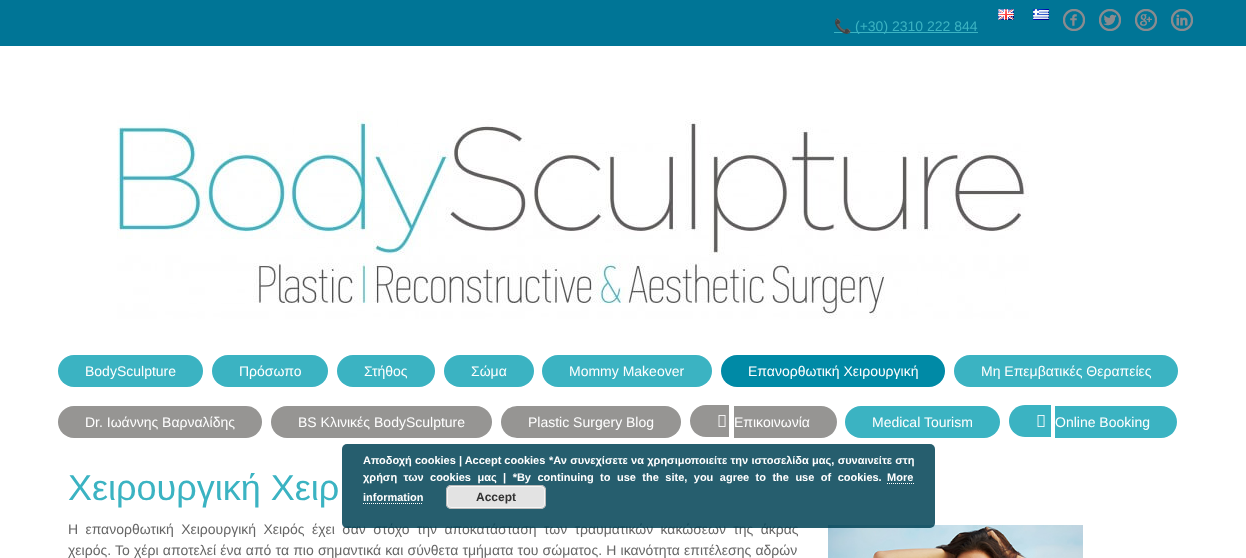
<svg xmlns="http://www.w3.org/2000/svg" width="1246" height="558">
<rect width="100%" height="100%" fill="#fff"/>
<rect width="1246" height="46" fill="#007596"/>
<rect x="834" y="32" width="144" height="1" fill="#3bb3c2"/>
<text x="834" y="31" style="font-family:Noto Color Emoji;font-size:14px;fill:#3bb3c2">📞</text>
<text x="855" y="31" style="font-family:Liberation Sans;font-size:14px;fill:#3bb3c2">(+30) 2310 222 844</text>
<image x="998" y="9" width="16" height="11" href="media/1.png"/>
<image x="1033" y="9" width="16" height="11" href="media/2.png"/>
<image x="1063" y="9" width="22" height="22" href="media/3.png"/>
<image x="1099" y="9" width="22" height="22" href="media/4.png"/>
<image x="1135" y="9" width="22" height="22" href="media/5.png"/>
<image x="1171" y="9" width="22" height="22" href="media/6.png"/>
<image x="117" y="111" width="912" height="208" href="media/7.png"/>
<rect x="58" y="355" width="145" height="32" rx="16" fill="#3bb3c2"/>
<text x="85" y="376" style="font-family:Liberation Sans;font-size:14px;fill:#fff">BodySculpture</text>
<rect x="212" y="355" width="116" height="32" rx="16" fill="#3bb3c2"/>
<text x="239" y="376" style="font-family:Liberation Sans;font-size:14px;fill:#fff">Πρόσωπο</text>
<rect x="337" y="355" width="98" height="32" rx="16" fill="#3bb3c2"/>
<text x="364" y="376" style="font-family:Liberation Sans;font-size:14px;fill:#fff">Στήθος</text>
<rect x="444" y="355" width="90" height="32" rx="16" fill="#3bb3c2"/>
<text x="471" y="376" style="font-family:Liberation Sans;font-size:14px;fill:#fff">Σώμα</text>
<rect x="542" y="355" width="170" height="32" rx="16" fill="#3bb3c2"/>
<text x="569" y="376" style="font-family:Liberation Sans;font-size:14px;fill:#fff">Mommy Makeover</text>
<rect x="721" y="355" width="224" height="32" rx="16" fill="#008aa6"/>
<text x="748" y="376" style="font-family:Liberation Sans;font-size:14px;fill:#fff">Επανορθωτική Χειρουργική</text>
<rect x="954" y="355" width="224" height="32" rx="16" fill="#3bb3c2"/>
<text x="981" y="376" style="font-family:Liberation Sans;font-size:14px;fill:#fff">Μη Επεμβατικές Θεραπείες</text>
<rect x="58" y="406" width="204" height="32" rx="16" fill="#969593"/>
<text x="85" y="427" style="font-family:Liberation Sans;font-size:14px;fill:#fff">Dr. Ιωάννης Βαρναλίδης</text>
<rect x="271" y="406" width="221" height="32" rx="16" fill="#969593"/>
<text x="298" y="427" style="font-family:Liberation Sans;font-size:14px;fill:#fff">BS Κλινικές BodySculpture</text>
<rect x="501" y="406" width="180" height="32" rx="16" fill="#969593"/>
<text x="528" y="427" style="font-family:Liberation Sans;font-size:14px;fill:#fff">Plastic Surgery Blog</text>
<path d="M706 405h23v32h-23c-9 0-16-7-16-16c0-9 7-16 16-16z" fill="#969593"/>
<path d="M734 406h87c9 0 16 7 16 16c0 9-7 16-16 16h-87z" fill="#969593"/>
<image x="718" y="415" width="8" height="12" href="media/8.png"/>
<text x="734" y="427" style="font-family:Liberation Sans;font-size:14px;fill:#fff">Επικοινωνία</text>
<rect x="845" y="406" width="155" height="32" rx="16" fill="#3bb3c2"/>
<text x="872" y="427" style="font-family:Liberation Sans;font-size:14px;fill:#fff">Medical Tourism</text>
<path d="M1025 405h26v32h-26c-9 0-16-7-16-16c0-9 7-16 16-16z" fill="#3bb3c2"/>
<path d="M1055 406h106c9 0 16 7 16 16c0 9-7 16-16 16h-106z" fill="#3bb3c2"/>
<image x="1037" y="415" width="8" height="12" href="media/9.png"/>
<text x="1055" y="427" style="font-family:Liberation Sans;font-size:14px;fill:#fff">Online Booking</text>
<text x="68" y="500" style="font-family:Liberation Sans;font-size:36px;fill:#3bb3c2">Χειρουργική Χειρ</text>
<text x="68" y="534" word-spacing="3.4" style="font-family:Liberation Sans;font-size:14px;fill:#666">Η επανορθωτική Χειρουργική Χειρός έχει σαν στόχο την αποκατάσταση των τραυματικών κακώσεων της άκρας</text>
<text x="68" y="555" word-spacing="0.3" style="font-family:Liberation Sans;font-size:14px;fill:#666">χειρός. Το χέρι αποτελεί ένα από τα πιο σημαντικά και σύνθετα τμήματα του σώματος. Η ικανότητα επιτέλεσης αδρών</text>
<image x="828" y="525" width="255" height="33" href="media/10.png"/>
<rect x="342" y="444" width="593" height="84" rx="5" fill="#004255d9"/>
<text x="363" y="464" style="font-family:Liberation Sans;font-size:11px;font-weight:bold;fill:#fff">Αποδοχή cookies | Accept cookies</text>
<text x="549" y="464" word-spacing="0.25" style="font-family:Liberation Sans;font-size:11px;font-weight:bold;fill:#fff">*Αν συνεχίσετε να χρησιμοποιείτε την ιστοσελίδα μας, συναινείτε στη</text>
<text x="363" y="481" word-spacing="3.4" style="font-family:Liberation Sans;font-size:11px;font-weight:bold;fill:#fff">χρήση των cookies μας | *By continuing to use the site, you agree to the use of cookies.</text>
<text x="887" y="481" style="font-family:Liberation Sans;font-size:11px;font-weight:bold;fill:#fff">More</text>
<path d="M887 483.5h27" fill="none" stroke="#fff" stroke-dasharray="1 1"/>
<text x="363" y="501" style="font-family:Liberation Sans;font-size:11px;font-weight:bold;fill:#fff">information</text>
<path d="M363 503.5h60" fill="none" stroke="#fff" stroke-dasharray="1 1"/>
<rect x="446" y="485" width="100" height="24" rx="5" fill="#e3e3e3"/>
<rect x="447.5" y="486.5" width="97" height="21" rx="3.5" fill="none" stroke="#f6f6f6"/>
<rect x="446.5" y="485.5" width="99" height="23" rx="4.5" fill="none" stroke="#bbb"/>
<text x="476" y="501" style="font-family:Liberation Sans;font-size:12px;font-weight:bold;fill:#333">Accept</text>
</svg>
